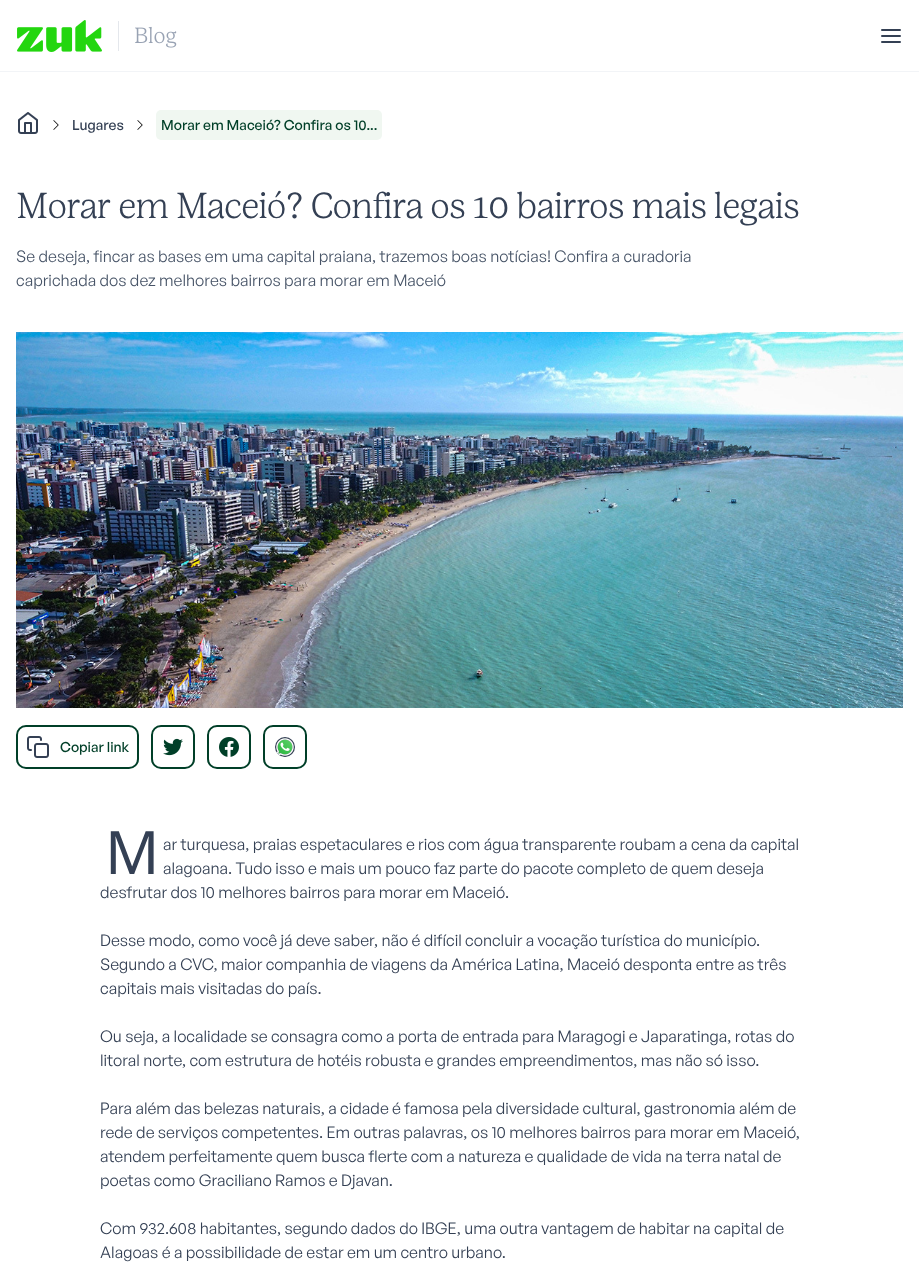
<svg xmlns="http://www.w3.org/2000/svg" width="919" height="1282">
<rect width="100%" height="100%" fill="#fff"/>
<rect y="71" width="919" height="1" fill="#f2f4f7"/>
<image x="17" y="20" width="160" height="32" href="media/1.png"/>
<path d="M882 36h18m-18-6h18m-18 12h18" fill="none" stroke="#344054" stroke-width="2" stroke-linecap="round" stroke-linejoin="round"/>
<image x="18" y="112" width="20" height="22" href="media/2.png"/>
<image x="53" y="120" width="6" height="10" href="media/3.png"/>
<text x="72" y="130" style="font-family:General Sans;font-size:14px;font-weight:500;fill:#344054">Lugares</text>
<image x="137" y="120" width="6" height="10" href="media/3.png"/>
<rect x="156" y="110" width="226" height="30" rx="5" fill="#f0f7f1"/>
<text x="161" y="130" style="font-family:General Sans;font-size:14px;font-weight:500;fill:#003f28">Morar em Maceió? Confira os 10...</text>
<text x="16" y="218" style="font-family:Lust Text;font-size:36px;font-weight:300;letter-spacing:-0.7px;fill:#344054">Morar em Maceió? Confira os 10 bairros mais legais</text>
<text x="16" y="262" style="font-family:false;font-size:16px;fill:#475467">Se deseja, fincar as bases em uma capital praiana, trazemos boas notícias! Confira a curadoria</text>
<text x="16" y="286" style="font-family:false;font-size:16px;fill:#475467">caprichada dos dez melhores bairros para morar em Maceió</text>
<image x="16" y="332" width="887" height="376" href="media/4.png"/>
<rect x="17" y="726" width="121" height="42" rx="9" fill="none" stroke="#003f28" stroke-width="2"/>
<image x="27" y="736" width="22" height="22" href="media/5.png"/>
<text x="60" y="752" style="font-family:General Sans;font-size:14px;font-weight:500;fill:#003f28">Copiar link</text>
<rect x="152" y="726" width="42" height="42" rx="9" fill="none" stroke="#003f28" stroke-width="2"/>
<image x="163" y="738" width="20" height="18" href="media/6.png"/>
<rect x="208" y="726" width="42" height="42" rx="9" fill="none" stroke="#003f28" stroke-width="2"/>
<image x="219" y="737" width="20" height="20" href="media/7.png"/>
<rect x="264" y="726" width="42" height="42" rx="9" fill="none" stroke="#003f28" stroke-width="2"/>
<circle cx="285" cy="747" r="10" fill="#344054"/>
<image x="276" y="738" width="18" height="19" href="media/8.png"/>
<text x="105" y="874" style="font-family:Noto Sans;font-size:60px;fill:#344054">M</text>
<text x="163" y="850" style="font-family:false;font-size:16px;fill:#344054">ar turquesa, praias espetaculares e rios com água transparente roubam a cena da capital</text>
<text x="163" y="874" style="font-family:false;font-size:16px;fill:#344054">alagoana. Tudo isso e mais um pouco faz parte do pacote completo de quem deseja</text>
<text x="100" y="898" style="font-family:false;font-size:16px;fill:#344054">desfrutar dos 10 melhores bairros para morar em Maceió.</text>
<text x="100" y="946" style="font-family:false;font-size:16px;fill:#344054">Desse modo, como você já deve saber, não é difícil concluir a vocação turística do município.</text>
<text x="100" y="970" style="font-family:false;font-size:16px;fill:#344054">Segundo a CVC, maior companhia de viagens da América Latina, Maceió desponta entre as três</text>
<text x="100" y="994" style="font-family:false;font-size:16px;fill:#344054">capitais mais visitadas do país.</text>
<text x="100" y="1042" style="font-family:false;font-size:16px;fill:#344054">Ou seja, a localidade se consagra como a porta de entrada para Maragogi e Japaratinga, rotas do</text>
<text x="100" y="1066" style="font-family:false;font-size:16px;fill:#344054">litoral norte, com estrutura de hotéis robusta e grandes empreendimentos, mas não só isso.</text>
<text x="100" y="1114" style="font-family:false;font-size:16px;fill:#344054">Para além das belezas naturais, a cidade é famosa pela diversidade cultural, gastronomia além de</text>
<text x="100" y="1138" style="font-family:false;font-size:16px;fill:#344054">rede de serviços competentes. Em outras palavras, os 10 melhores bairros para morar em Maceió,</text>
<text x="100" y="1162" style="font-family:false;font-size:16px;fill:#344054">atendem perfeitamente quem busca flerte com a natureza e qualidade de vida na terra natal de</text>
<text x="100" y="1186" style="font-family:false;font-size:16px;fill:#344054">poetas como Graciliano Ramos e Djavan.</text>
<text x="100" y="1234" style="font-family:false;font-size:16px;fill:#344054">Com 932.608 habitantes, segundo dados do IBGE, uma outra vantagem de habitar na capital de</text>
<text x="100" y="1258" style="font-family:false;font-size:16px;fill:#344054">Alagoas é a possibilidade de estar em um centro urbano.</text>
</svg>
